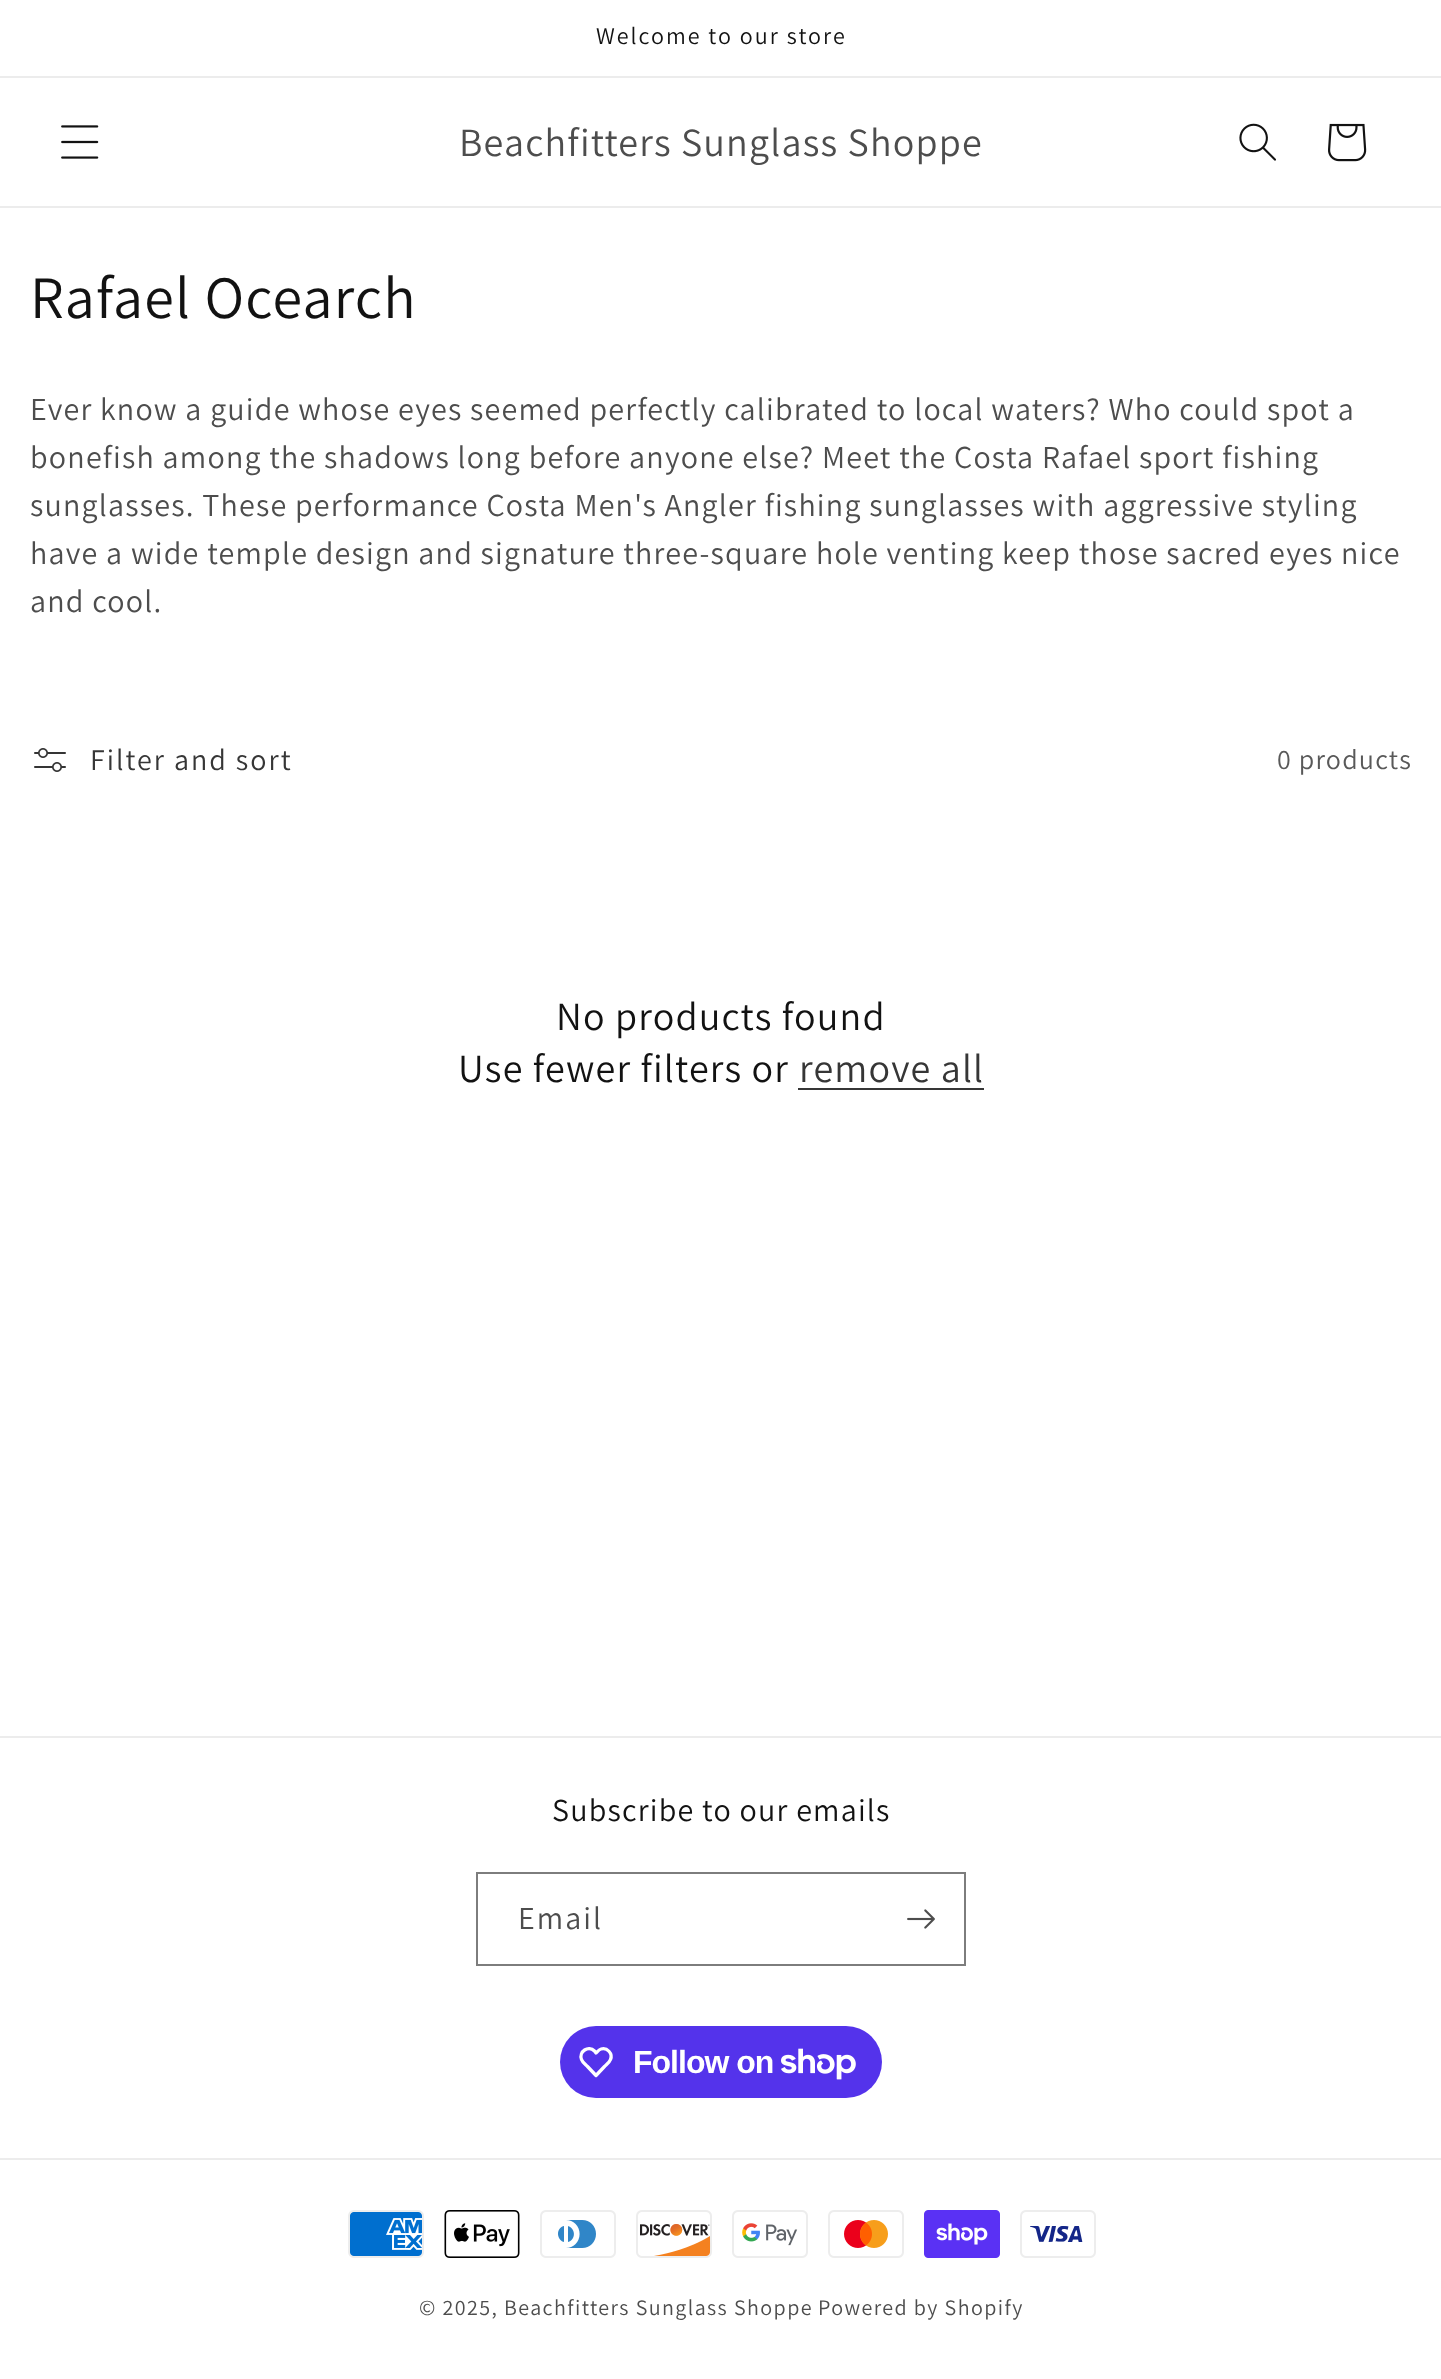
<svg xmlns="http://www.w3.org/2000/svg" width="1441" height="2379">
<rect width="100%" height="100%" fill="#fff"/>
<rect y="76" width="1441" height="2" fill="#ececec"/>
<text x="596" y="44" style="font-family:Assistant;font-size:24px;letter-spacing:2px;fill:#121212">Welcome to our store</text>
<rect y="206" width="1441" height="2" fill="#ececec"/>
<image x="61" y="125" width="38" height="34" href="media/1.png"/>
<text x="459" y="156" style="font-family:Assistant;font-size:40px;letter-spacing:1.2px;fill:#4d4d4d">Beachfitters Sunglass Shoppe</text>
<image x="1239" y="123" width="37" height="38" href="media/2.png"/>
<image x="1328" y="123" width="39" height="39" href="media/3.png"/>
<text x="30" y="318" style="font-family:Assistant;font-size:60px;letter-spacing:1.2px;fill:#121212">Rafael Ocearch</text>
<text x="30" y="420" style="font-family:Assistant;font-size:32px;letter-spacing:1.2px;fill:#4d4d4d">Ever know a guide whose eyes seemed perfectly calibrated to local waters? Who could spot a</text>
<text x="30" y="468" style="font-family:Assistant;font-size:32px;letter-spacing:1.2px;fill:#4d4d4d">bonefish among the shadows long before anyone else? Meet the Costa Rafael sport fishing</text>
<text x="30" y="516" style="font-family:Assistant;font-size:32px;letter-spacing:1.2px;fill:#4d4d4d">sunglasses. These performance Costa Men's Angler fishing sunglasses with aggressive styling</text>
<text x="30" y="564" style="font-family:Assistant;font-size:32px;letter-spacing:1.2px;fill:#4d4d4d">have a wide temple design and signature three-square hole venting keep those sacred eyes nice</text>
<text x="30" y="612" style="font-family:Assistant;font-size:32px;letter-spacing:1.2px;fill:#4d4d4d">and cool.</text>
<image x="34" y="748" width="32" height="24" href="media/4.png"/>
<text x="90" y="770" style="font-family:Assistant;font-size:30px;letter-spacing:2px;fill:#363636">Filter and sort</text>
<text x="1277" y="769" style="font-family:Assistant;font-size:28px;letter-spacing:1.2px;fill:#595959">0 products</text>
<text x="556" y="1030" style="font-family:Assistant;font-size:40px;letter-spacing:1.2px;fill:#121212">No products found</text>
<text x="458" y="1082" style="font-family:Assistant;font-size:40px;letter-spacing:1.2px;fill:#121212">Use fewer filters or</text>
<text x="799" y="1082" style="font-family:Assistant;font-size:40px;letter-spacing:1.2px;fill:#363636">remove all</text>
<rect x="798" y="1088" width="186" height="2" fill="#363636"/>
<rect y="1736" width="1441" height="2" fill="#ececec"/>
<text x="552" y="1821" style="font-family:Assistant;font-size:32px;letter-spacing:1.2px;fill:#121212">Subscribe to our emails</text>
<rect x="477" y="1873" width="488" height="92" fill="none" stroke="#7d7d7d" stroke-width="2"/>
<text x="518" y="1929" style="font-family:Assistant;font-size:32px;letter-spacing:2px;fill:#4d4d4d">Email</text>
<image x="907" y="1909" width="28" height="20" href="media/5.png"/>
<rect x="560" y="2026" width="322" height="72" rx="36" fill="#5433eb"/>
<path d="M594.5 2051l1.5 2c1.5-1.5 3-3.5 5-4c6-2 12 4.5 9.5 10.5c-1 3-4 5-6 7l-8.5 9l-8.5-9c-2-2-5-4-6-7c-3-8 7-14.5 13-8.5z" fill="none" stroke="#fff" stroke-width="3.3" stroke-linejoin="round"/>
<text x="633" y="2073" style="font-family:Liberation Sans;font-size:32px;font-weight:bold;letter-spacing:-1px;fill:#fff">Follow on</text>
<image x="781" y="2048" width="75" height="32" href="media/6.png"/>
<rect y="2158" width="1441" height="2" fill="#ececec"/>
<image x="348" y="2210" width="76" height="48" href="media/7.png"/>
<image x="444" y="2210" width="76" height="48" href="media/8.png"/>
<image x="540" y="2210" width="76" height="48" href="media/9.png"/>
<image x="636" y="2210" width="76" height="48" href="media/10.png"/>
<image x="732" y="2210" width="76" height="48" href="media/11.png"/>
<image x="828" y="2210" width="76" height="48" href="media/12.png"/>
<image x="924" y="2210" width="76" height="48" href="media/13.png"/>
<image x="1020" y="2210" width="76" height="48" href="media/14.png"/>
<text x="419" y="2315" style="font-family:Assistant;font-size:22px;letter-spacing:1.4px;fill:#4d4d4d">© 2025, Beachfitters Sunglass Shoppe</text>
<text x="818" y="2315" style="font-family:Assistant;font-size:22px;letter-spacing:1.4px;fill:#4d4d4d">Powered by Shopify</text>
</svg>
